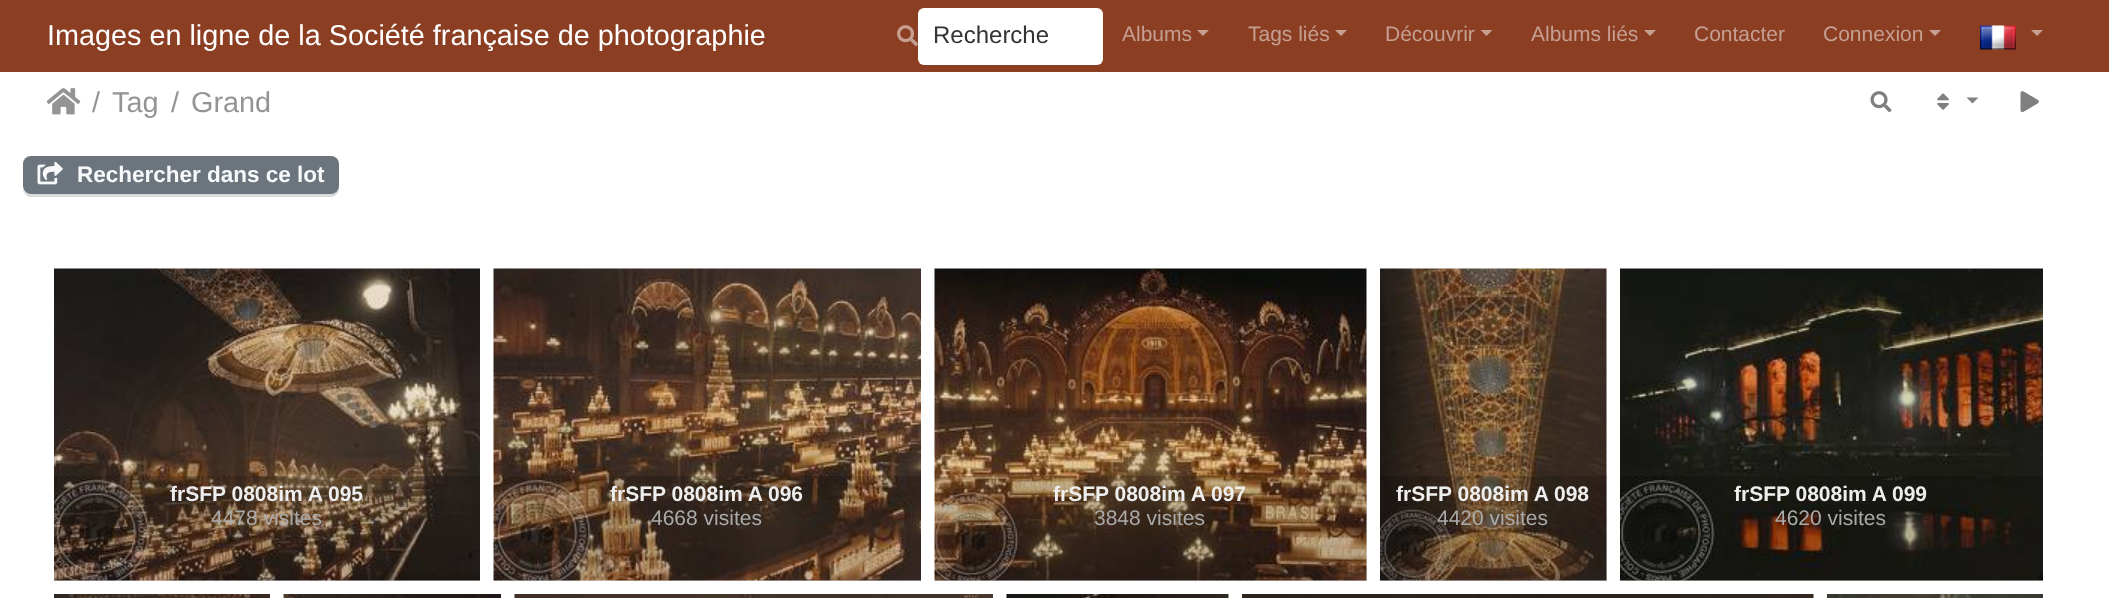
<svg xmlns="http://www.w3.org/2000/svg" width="2109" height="598">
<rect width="100%" height="100%" fill="#fff"/>
<rect width="2109" height="72" fill="#8b3e22"/>
<text x="47" y="45" style="font-family:Liberation Sans;font-size:28.8px;fill:#fff">Images en ligne de la Société française de photographie</text>
<image x="897" y="25" width="21" height="22" href="media/1.png"/>
<rect x="918" y="8" width="185" height="57" rx="6" fill="#fff"/>
<text x="933" y="43" style="font-family:Liberation Sans;font-size:24px;fill:#333">Recherche</text>
<text x="1122" y="41" style="font-family:Liberation Sans;font-size:21px;fill:#c59f91">Albums</text>
<path d="M1197 30h12l-6 6z" fill="#c59f91"/>
<text x="1248" y="41" style="font-family:Liberation Sans;font-size:21px;fill:#c59f91">Tags liés</text>
<path d="M1335 30h12l-6 6z" fill="#c59f91"/>
<text x="1385" y="41" style="font-family:Liberation Sans;font-size:21px;fill:#c59f91">Découvrir</text>
<path d="M1480.5 30h12l-6 6z" fill="#c59f91"/>
<text x="1531" y="41" style="font-family:Liberation Sans;font-size:21px;fill:#c59f91">Albums liés</text>
<path d="M1644 30h12l-6 6z" fill="#c59f91"/>
<text x="1694" y="41" style="font-family:Liberation Sans;font-size:21px;fill:#c59f91">Contacter</text>
<text x="1823" y="41" style="font-family:Liberation Sans;font-size:21px;fill:#c59f91">Connexion</text>
<path d="M1929 30h12l-6 6z" fill="#c59f91"/>
<image x="1980" y="25" width="36" height="25" href="media/2.png"/>
<path d="M2031 30h12l-6 6z" fill="#c59f91"/>
<image x="47" y="88" width="34" height="27" href="media/3.png"/>
<text x="92" y="112" style="font-family:Liberation Sans;font-size:28.8px;fill:#949494">/</text>
<text x="112" y="112" style="font-family:Liberation Sans;font-size:28.8px;fill:#949494">Tag</text>
<text x="171" y="112" style="font-family:Liberation Sans;font-size:28.8px;fill:#949494">/</text>
<text x="191" y="112" style="font-family:Liberation Sans;font-size:28.8px;fill:#949494">Grand</text>
<image x="1870" y="91" width="22" height="22" href="media/4.png"/>
<image x="1937" y="93" width="12" height="17" href="media/5.png"/>
<path d="M1966.5 97.5h12l-6 6z" fill="#808080"/>
<image x="2020" y="91" width="19" height="22" href="media/6.png"/>
<path d="M23 189c0 4 4 8 8 8h300c4 0 8-4 8-8v-3c0 4-3 8-7 8h-302c-3 0-6-2-7-5z" fill="#dbdbdb"/>
<rect x="23" y="156" width="316" height="38" rx="8" fill="#6c757d"/>
<image x="37" y="161" width="26" height="24" href="media/7.png"/>
<text x="77" y="182" style="font-family:Liberation Sans;font-size:22.5px;font-weight:bold;fill:#f8f9fa">Rechercher dans ce lot</text>
<image x="54" y="268" width="426" height="313" href="media/8.png"/>
<rect x="54" y="476" width="426" height="105" fill="#00000026"/>
<text x="170" y="501" style="font-family:Liberation Sans;font-size:21px;font-weight:bold;fill:#eee">frSFP 0808im A 095</text>
<text x="211" y="525" style="font-family:Liberation Sans;font-size:21px;fill:#aaa">4478 visites</text>
<image x="493" y="268" width="428" height="313" href="media/9.png"/>
<rect x="494" y="476" width="427" height="105" fill="#00000026"/>
<text x="610" y="501" style="font-family:Liberation Sans;font-size:21px;font-weight:bold;fill:#eee">frSFP 0808im A 096</text>
<text x="651" y="525" style="font-family:Liberation Sans;font-size:21px;fill:#aaa">4668 visites</text>
<image x="934" y="268" width="433" height="313" href="media/10.png"/>
<rect x="935" y="476" width="432" height="105" fill="#00000026"/>
<text x="1053" y="501" style="font-family:Liberation Sans;font-size:21px;font-weight:bold;fill:#eee">frSFP 0808im A 097</text>
<text x="1094" y="525" style="font-family:Liberation Sans;font-size:21px;fill:#aaa">3848 visites</text>
<image x="1380" y="268" width="227" height="313" href="media/11.png"/>
<rect x="1380" y="476" width="227" height="105" fill="#00000026"/>
<text x="1396" y="501" style="font-family:Liberation Sans;font-size:21px;font-weight:bold;fill:#eee">frSFP 0808im A 098</text>
<text x="1437" y="525" style="font-family:Liberation Sans;font-size:21px;fill:#aaa">4420 visites</text>
<image x="1620" y="268" width="423" height="313" href="media/12.png"/>
<rect x="1620" y="476" width="423" height="105" fill="#00000026"/>
<text x="1734" y="501" style="font-family:Liberation Sans;font-size:21px;font-weight:bold;fill:#eee">frSFP 0808im A 099</text>
<text x="1775" y="525" style="font-family:Liberation Sans;font-size:21px;fill:#aaa">4620 visites</text>
<image x="54" y="594" width="216" height="4" href="media/13.png"/>
<image x="283" y="594" width="218" height="4" href="media/14.png"/>
<image x="514" y="594" width="479" height="4" href="media/15.png"/>
<image x="1006" y="594" width="223" height="4" href="media/16.png"/>
<image x="1242" y="594" width="572" height="4" href="media/17.png"/>
<image x="1827" y="594" width="216" height="4" href="media/18.png"/>
</svg>
